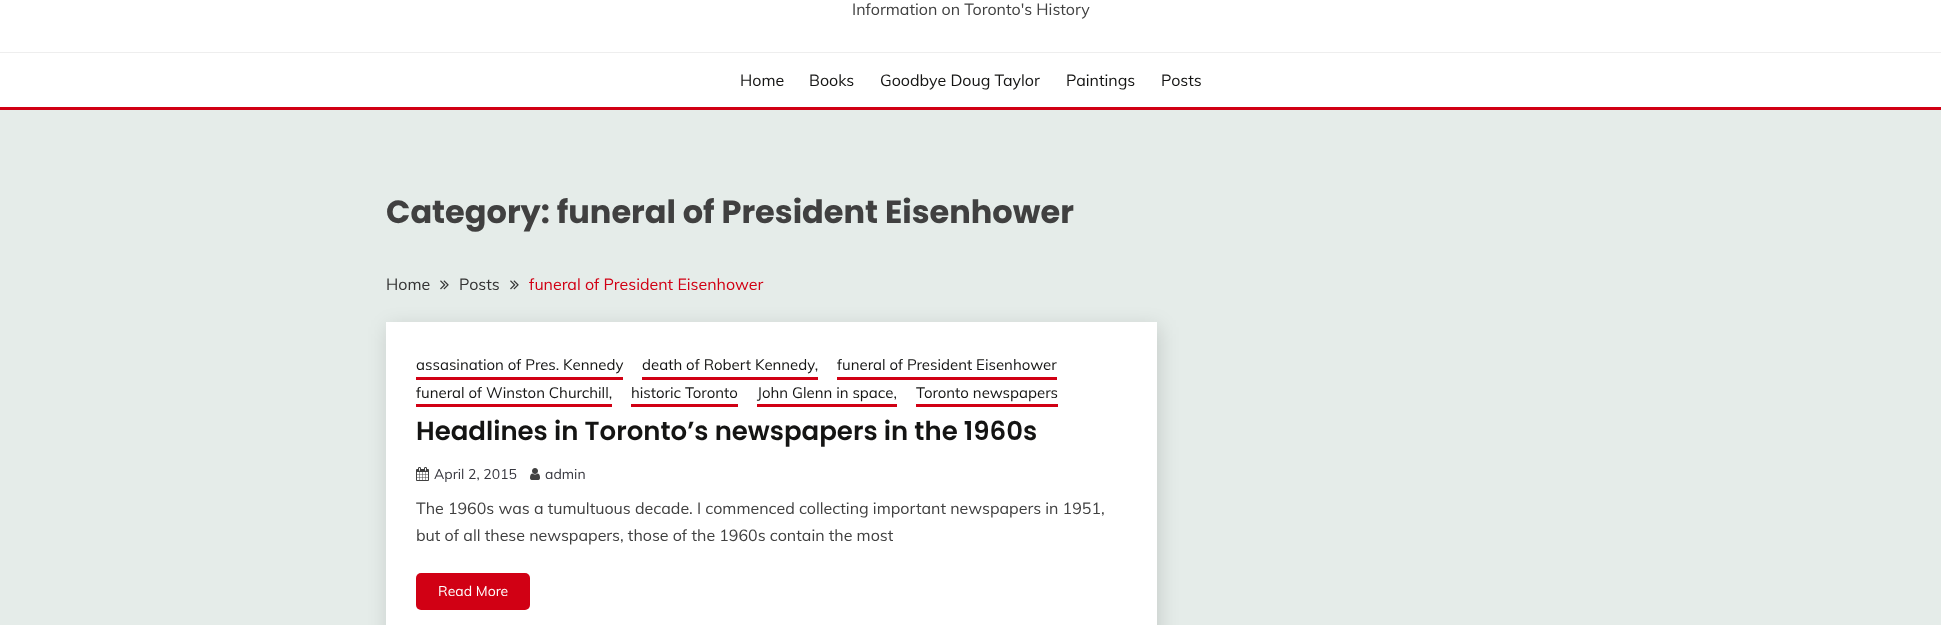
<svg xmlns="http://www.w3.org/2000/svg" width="1941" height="625">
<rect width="100%" height="100%" fill="#e5ece9"/>
<rect width="1941" height="107" fill="#fff"/>
<rect y="52" width="1941" height="1" fill="#eee"/>
<text x="852" y="15" style="font-family:Muli;font-size:16px;fill:#404040">Information on Toronto's History</text>
<rect y="107" width="1941" height="3" fill="#d10014"/>
<text x="740" y="86" style="font-family:Muli;font-size:16px;fill:#141413">Home</text>
<text x="809" y="86" style="font-family:Muli;font-size:16px;fill:#141413">Books</text>
<text x="880" y="86" style="font-family:Muli;font-size:16px;fill:#141413">Goodbye Doug Taylor</text>
<text x="1066" y="86" style="font-family:Muli;font-size:16px;fill:#141413">Paintings</text>
<text x="1161" y="86" style="font-family:Muli;font-size:16px;fill:#141413">Posts</text>
<text x="386" y="223" style="font-family:Poppins;font-size:32px;font-weight:bold;fill:#404040">Category: funeral of President Eisenhower</text>
<text x="386" y="290" style="font-family:Muli;font-size:16px;fill:#333">Home</text>
<image x="440" y="280" width="9" height="10" href="media/1.png"/>
<text x="459" y="290" style="font-family:Muli;font-size:16px;fill:#333">Posts</text>
<image x="510" y="280" width="9" height="10" href="media/1.png"/>
<text x="529" y="290" style="font-family:Muli;font-size:16px;fill:#d10014">funeral of President Eisenhower</text>
<rect x="388" y="327" width="771" height="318" fill="#00000024" filter="blur(10px)"/>
<rect x="386" y="322" width="771" height="303" fill="#fff"/>
<text x="416" y="370" style="font-family:Muli;font-size:15px;fill:#141413">assasination of Pres. Kennedy</text>
<rect x="416" y="377" width="207" height="3" fill="#d10014"/>
<text x="642" y="370" style="font-family:Muli;font-size:15px;fill:#141413">death of Robert Kennedy,</text>
<rect x="642" y="377" width="176" height="3" fill="#d10014"/>
<text x="837" y="370" style="font-family:Muli;font-size:15px;fill:#141413">funeral of President Eisenhower</text>
<rect x="837" y="377" width="220" height="3" fill="#d10014"/>
<text x="416" y="398" style="font-family:Muli;font-size:15px;fill:#141413">funeral of Winston Churchill,</text>
<rect x="416" y="404" width="196" height="3" fill="#d10014"/>
<text x="631" y="398" style="font-family:Muli;font-size:15px;fill:#141413">historic Toronto</text>
<rect x="631" y="404" width="107" height="3" fill="#d10014"/>
<text x="757" y="398" style="font-family:Muli;font-size:15px;fill:#141413">John Glenn in space,</text>
<rect x="757" y="404" width="140" height="3" fill="#d10014"/>
<text x="916" y="398" style="font-family:Muli;font-size:15px;fill:#141413">Toronto newspapers</text>
<rect x="916" y="404" width="142" height="3" fill="#d10014"/>
<text x="416" y="440" style="font-family:Poppins;font-size:26px;font-weight:600;fill:#141413">Headlines in Toronto’s newspapers in the 1960s</text>
<image x="416" y="467" width="13" height="14" href="media/2.png"/>
<text x="434" y="479" style="font-family:Muli;font-size:14px;fill:#37373f">April 2, 2015</text>
<image x="530" y="468" width="10" height="12" href="media/3.png"/>
<text x="545" y="479" style="font-family:Muli;font-size:14px;fill:#37373f">admin</text>
<text x="416" y="514" style="font-family:Muli;font-size:16px;fill:#404040">The 1960s was a tumultuous decade. I commenced collecting important newspapers in 1951,</text>
<text x="416" y="541" style="font-family:Muli;font-size:16px;fill:#404040">but of all these newspapers, those of the 1960s contain the most</text>
<rect x="416" y="573" width="114" height="37" rx="5" fill="#d10014"/>
<text x="438" y="596" style="font-family:Muli;font-size:14px;fill:#fff">Read More</text>
</svg>
